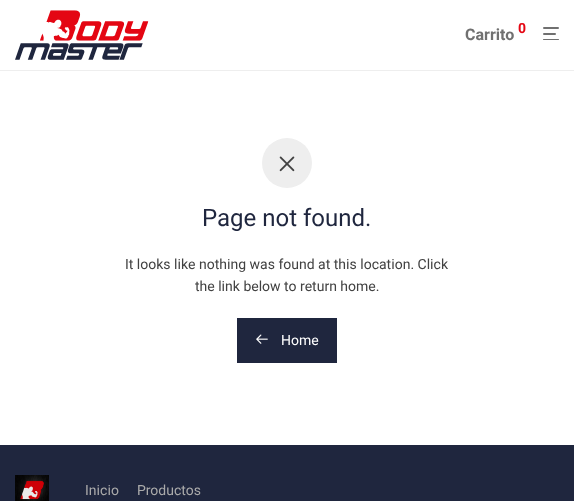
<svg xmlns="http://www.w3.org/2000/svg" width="574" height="501">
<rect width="100%" height="100%" fill="#fff"/>
<rect y="70" width="574" height="1" fill="#eee"/>
<image x="15" y="10" width="134" height="50" href="media/1.png"/>
<text x="465" y="40" style="font-family:Heebo;font-size:16px;font-weight:bold;fill:#707070">Carrito</text>
<text x="518" y="33" style="font-family:Heebo;font-size:14px;font-weight:bold;fill:#e40613">0</text>
<rect x="543" y="27" width="16" height="2" rx="1" fill="#707070"/>
<rect x="543" y="33" width="13" height="2" rx="1" fill="#707070"/>
<rect x="543" y="39" width="16" height="1" rx="0.5" fill="#707070"/>
<circle cx="287" cy="163" r="25" fill="#eee"/>
<image x="279" y="156" width="16" height="16" href="media/2.png"/>
<text x="202" y="226" style="font-family:Heebo;font-size:24px;fill:#1f263e">Page not found.</text>
<text x="125" y="269" style="font-family:Heebo;font-size:14px;fill:#424242">It looks like nothing was found at this location. Click</text>
<text x="195" y="291" style="font-family:Heebo;font-size:14px;fill:#424242">the link below to return home.</text>
<rect x="237" y="318" width="100" height="45" fill="#1f263e"/>
<image x="256" y="334" width="12" height="10" href="media/3.png"/>
<text x="281" y="345" style="font-family:Heebo;font-size:14px;fill:#fff">Home</text>
<rect y="445" width="574" height="56" fill="#1f263e"/>
<image x="15" y="475" width="34" height="26" href="media/4.png"/>
<text x="85" y="495" style="font-family:Heebo;font-size:14px;fill:#aaa">Inicio</text>
<text x="137" y="495" style="font-family:Heebo;font-size:14px;fill:#aaa">Productos</text>
</svg>
